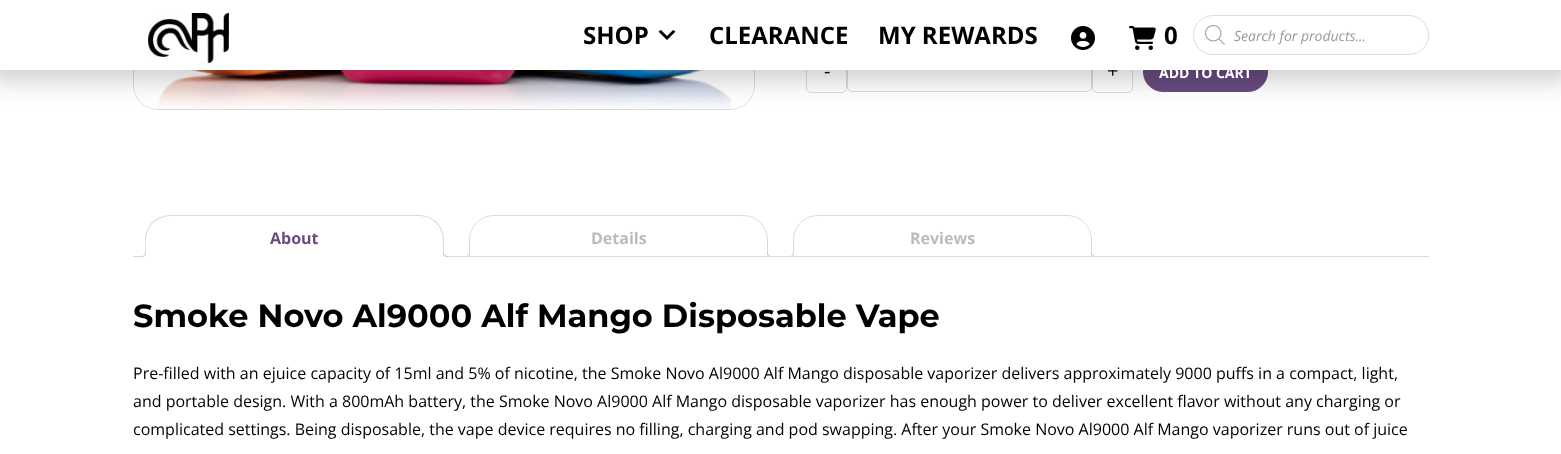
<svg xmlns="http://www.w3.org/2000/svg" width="1561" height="454">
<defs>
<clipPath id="clip1"><rect x="133" y="215" width="1296" height="42"/></clipPath>
</defs>
<rect width="100%" height="100%" fill="#fff"/>
<rect x="133.5" y="-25.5" width="621" height="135" rx="24.5" fill="none" stroke="#dbdbdb"/>
<image x="134" y="70" width="620" height="39" href="media/5.png"/>
<rect x="806.5" y="52.5" width="40" height="40" rx="4.5" fill="none" stroke="#dbdbdb"/>
<rect x="847.5" y="52.5" width="244" height="39" rx="4.5" fill="none" stroke="#dbdbdb"/>
<rect x="1092.5" y="52.5" width="40" height="40" rx="4.5" fill="none" stroke="#dbdbdb"/>
<rect x="1143.5" y="52.5" width="124" height="39" rx="19.5" fill="#684b80" stroke="#684b80"/>
<rect x="-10" y="-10" width="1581" height="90" fill="#00000033" filter="blur(12.5px)"/>
<text x="1107" y="78" style="font-family:Open Sans;font-size:20px;fill:#0a0a0a">+</text>
<rect width="1561" height="70" fill="#fff"/>
<image x="148" y="13" width="81" height="50" href="media/1.png"/>
<text x="583" y="44" style="font-family:Open Sans;font-size:24px;font-weight:bold;fill:#000">SHOP</text>
<path d="M661 30l6 6l6-6l2.5 1.5l-8.5 8.5l-8.5-8.5z" fill="#000"/>
<text x="709" y="44" style="font-family:Open Sans;font-size:24px;font-weight:bold;fill:#000">CLEARANCE</text>
<text x="878" y="44" style="font-family:Open Sans;font-size:24px;font-weight:bold;fill:#000">MY REWARDS</text>
<image x="1071" y="26" width="24" height="24" href="media/2.png"/>
<image x="1129" y="26" width="27" height="24" href="media/3.png"/>
<text x="1164" y="44" style="font-family:Open Sans;font-size:24px;font-weight:bold;fill:#000">0</text>
<rect x="1193.5" y="15.5" width="235" height="39" rx="19.5" fill="none" stroke="#ddd"/>
<image x="1205" y="25" width="20" height="20" href="media/4.png"/>
<text x="1234" y="41" style="font-family:Open Sans;font-size:14px;font-style:italic;fill:#999">Search for products...</text>
<text x="824" y="78" style="font-family:Open Sans;font-size:20px;fill:#0a0a0a">-</text>
<text x="1159" y="78" style="font-family:Open Sans;font-size:14px;font-weight:bold;fill:#fff">ADD TO CART</text>
<path d="M494 215.5h249c13.5 0 24.5 11 24.5 24.5v16.5h-298v-16.5c0-13.5 11-24.5 24.5-24.5z" fill="none" stroke="#dbdbdb"/>
<g clip-path="url(#clip1)">
<path d="M467 257v2c3.5 0 5-1.5 5-5h-2c-.5 1.5-1.5 2.5-3 3z" fill="#fff"/>
</g>
<path d="M465 252h5c0 3.5-1.5 5-5 5zm0 0h4c0 3-1 4-4 4z" fill="#cfc8d8" fill-rule="evenodd"/>
<g clip-path="url(#clip1)">
<path d="M765 254c0 3.5 1.5 5 5 5v-2c-1.5-.5-2.5-1.5-3-3z" fill="#fff"/>
</g>
<path d="M767 252h5v5c-2.5 0-5-1-5-4zm1 0h4v4c-2 0-4-.5-4-3z" fill="#cfc8d8" fill-rule="evenodd"/>
<path d="M818 215.5h249c13.5 0 24.5 11 24.5 24.5v16.5h-298v-16.5c0-13.5 11-24.5 24.5-24.5z" fill="none" stroke="#dbdbdb"/>
<g clip-path="url(#clip1)">
<path d="M791 257v2c3.5 0 5-1.5 5-5h-2c-.5 1.5-1.5 2.5-3 3z" fill="#fff"/>
</g>
<path d="M789 252h5c0 3.5-1.5 5-5 5zm0 0h4c0 3-1 4-4 4z" fill="#cfc8d8" fill-rule="evenodd"/>
<g clip-path="url(#clip1)">
<path d="M1089 254c0 3.5 1.5 5 5 5v-2c-1.5-.5-2.5-1.5-3-3z" fill="#fff"/>
</g>
<path d="M1091 252h5v5c-2.5 0-5-1-5-4zm1 0h4v4c-2 0-4-.5-4-3z" fill="#cfc8d8" fill-rule="evenodd"/>
<rect x="133" y="256" width="1296" height="1" fill="#dbdbdb"/>
<path d="M170 215h249c14 0 25 11 25 25v17h-299v-17c0-14 11-25 25-25z" fill="#fff"/>
<path d="M170 215c-7 0-13 3-18 7l1 1c5-4 11-7 17-7h249c7 0 13 3 17 7l1-1c-5-4-11-7-18-7z" fill="#dbdbdb"/>
<path d="M444 257v-17c0-7-3-13-7-18l-1 1c9 9 7 21.5 7 33z" fill="#dbdbdb"/>
<path d="M444 257l-1-1h-297l-1 1z" fill="#fff"/>
<path d="M145 257l1-1c0-11.5-2-24 7-33l-1-1c-4 5-7 11-7 18z" fill="#dbdbdb"/>
<text x="270" y="244" style="font-family:Open Sans;font-size:16px;font-weight:bold;fill:#684b80">About</text>
<g clip-path="url(#clip1)">
<path d="M143 257v2c3.5 0 5-1.5 5-5h-2c-.5 1.5-1.5 2.5-3 3z" fill="#fff"/>
</g>
<path d="M141 252h5c0 3.5-1.5 5-5 5zm0 0h4c0 3-1 4-4 4z" fill="#cfc8d8" fill-rule="evenodd"/>
<g clip-path="url(#clip1)">
<path d="M441 254c0 3.5 1.5 5 5 5v-2c-1.5-.5-2.5-1.5-3-3z" fill="#fff"/>
</g>
<path d="M443 252h5v5c-2.5 0-5-1-5-4zm1 0h4v4c-2 0-4-.5-4-3z" fill="#cfc8d8" fill-rule="evenodd"/>
<text x="591" y="244" style="font-family:Open Sans;font-size:16px;font-weight:bold;fill:#bbb">Details</text>
<text x="910" y="244" style="font-family:Open Sans;font-size:16px;font-weight:bold;fill:#bbb">Reviews</text>
<text x="133" y="327" style="font-family:Montserrat;font-size:32px;font-weight:100;fill:#000">Smoke Novo Al9000 Alf Mango Disposable Vape</text>
<text x="133" y="379" style="font-family:Open Sans;font-size:16px;fill:#000">Pre-filled with an ejuice capacity of 15ml and 5% of nicotine, the Smoke Novo Al9000 Alf Mango disposable vaporizer delivers approximately 9000 puffs in a compact, light,</text>
<text x="133" y="407" style="font-family:Open Sans;font-size:16px;fill:#000">and portable design. With a 800mAh battery, the Smoke Novo Al9000 Alf Mango disposable vaporizer has enough power to deliver excellent flavor without any charging or</text>
<text x="133" y="435" style="font-family:Open Sans;font-size:16px;fill:#000">complicated settings. Being disposable, the vape device requires no filling, charging and pod swapping. After your Smoke Novo Al9000 Alf Mango vaporizer runs out of juice</text>
</svg>
